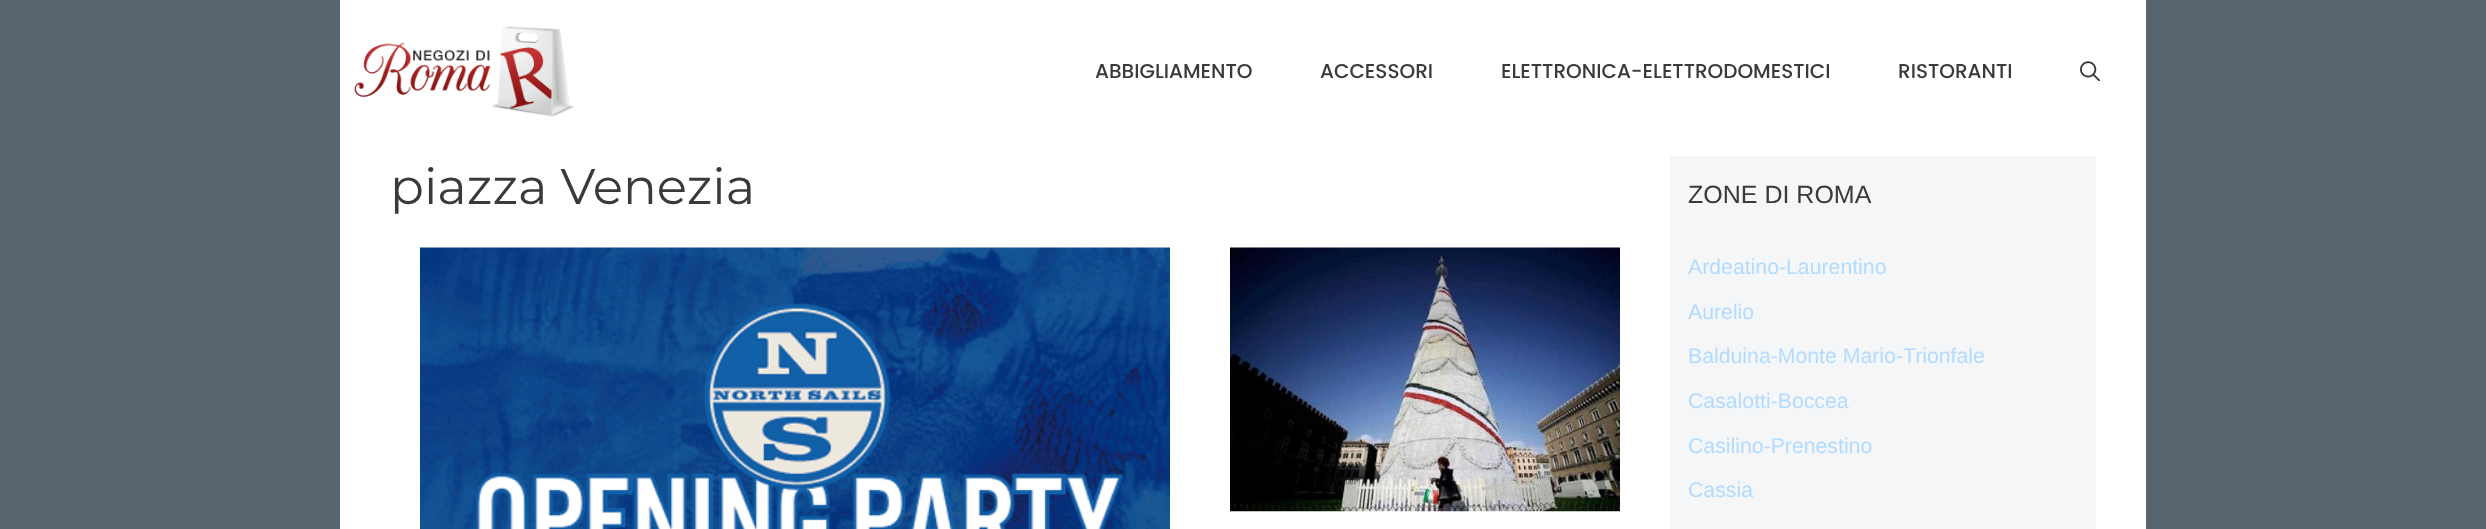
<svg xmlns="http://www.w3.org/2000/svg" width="2486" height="529">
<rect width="100%" height="100%" fill="#58656f"/>
<rect x="340" width="1806" height="529" fill="#fff"/>
<image x="354" y="26" width="221" height="91" href="media/1.png"/>
<text x="1095" y="78" style="font-family:Poppins;font-size:20px;font-weight:500;fill:#3a3a3a">ABBIGLIAMENTO</text>
<text x="1320" y="78" style="font-family:Poppins;font-size:20px;font-weight:500;fill:#3a3a3a">ACCESSORI</text>
<text x="1501" y="78" style="font-family:Poppins;font-size:20px;font-weight:500;fill:#3a3a3a">ELETTRONICA-ELETTRODOMESTICI</text>
<text x="1898" y="78" style="font-family:Poppins;font-size:20px;font-weight:500;fill:#3a3a3a">RISTORANTI</text>
<image x="2080" y="61" width="20" height="20" href="media/2.png"/>
<text x="390" y="204" style="font-family:Montserrat;font-size:50px;fill:#3a3a3a">piazza Venezia</text>
<image x="420" y="247" width="750" height="282" href="media/3.png"/>
<image x="1230" y="247" width="390" height="265" href="media/4.png"/>
<rect x="1670" y="156" width="426" height="373" fill="#f4f6f7"/>
<text x="1688" y="203" style="font-family:Liberation Sans;font-size:25px;fill:#3a3a3a">ZONE DI ROMA</text>
<text x="1688" y="274" style="font-family:Liberation Sans;font-size:21.25px;fill:#b2dbff">Ardeatino-Laurentino</text>
<text x="1688" y="319" style="font-family:Liberation Sans;font-size:21.25px;fill:#b2dbff">Aurelio</text>
<text x="1688" y="363" style="font-family:Liberation Sans;font-size:21.25px;fill:#b2dbff">Balduina-Monte Mario-Trionfale</text>
<text x="1688" y="408" style="font-family:Liberation Sans;font-size:21.25px;fill:#b2dbff">Casalotti-Boccea</text>
<text x="1688" y="453" style="font-family:Liberation Sans;font-size:21.25px;fill:#b2dbff">Casilino-Prenestino</text>
<text x="1688" y="497" style="font-family:Liberation Sans;font-size:21.25px;fill:#b2dbff">Cassia</text>
</svg>
